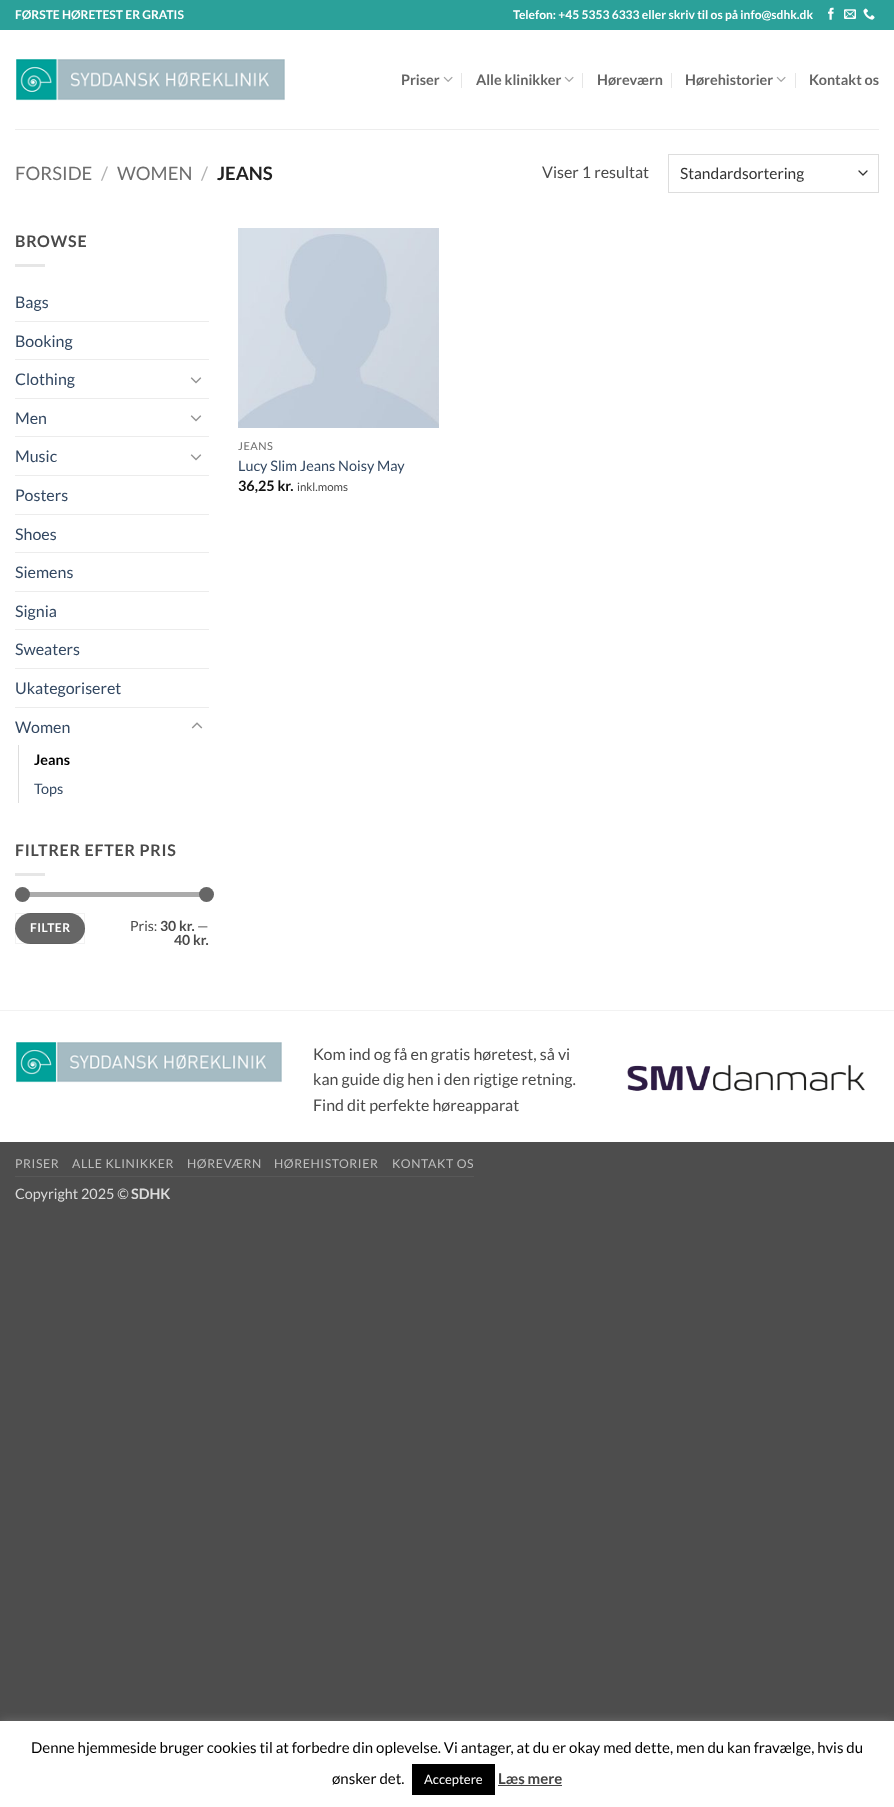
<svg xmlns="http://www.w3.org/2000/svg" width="894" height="1807">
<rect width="100%" height="100%" fill="#4d4d4d"/>
<rect y="30" width="894" height="1112" fill="#fff"/>
<rect width="894" height="30" fill="#2ba19a"/>
<text x="15" y="19" style="font-family:Lato;font-size:12px;font-weight:bold;fill:#fff">FØRSTE HØRETEST ER GRATIS</text>
<text x="513" y="19" style="font-family:Lato;font-size:12px;font-weight:bold;fill:#fff">Telefon: +45 5353 6333 eller skriv til os på info@sdhk.dk</text>
<image x="828" y="7" width="6" height="13" href="media/1.png"/>
<image x="844" y="9" width="12" height="10" href="media/2.png"/>
<image x="863" y="8" width="12" height="12" href="media/3.png"/>
<image x="16" y="59" width="269" height="42" href="media/4.png"/>
<text x="401" y="85" style="font-family:Lato;font-size:14.4px;font-weight:bold;fill:#656565">Priser</text>
<image x="443" y="76" width="10" height="6" href="media/5.png"/>
<rect x="461" y="73" width="1" height="15" fill="#e6e6e6"/>
<text x="476" y="85" style="font-family:Lato;font-size:14.4px;font-weight:bold;fill:#656565">Alle klinikker</text>
<image x="564" y="76" width="10" height="6" href="media/5.png"/>
<rect x="582" y="73" width="1" height="15" fill="#e6e6e6"/>
<text x="597" y="85" style="font-family:Lato;font-size:14.4px;font-weight:bold;fill:#656565">Høreværn</text>
<rect x="671" y="73" width="1" height="15" fill="#e6e6e6"/>
<text x="685" y="85" style="font-family:Lato;font-size:14.4px;font-weight:bold;fill:#656565">Hørehistorier</text>
<image x="776" y="76" width="10" height="6" href="media/5.png"/>
<rect x="795" y="73" width="1" height="15" fill="#e6e6e6"/>
<text x="809" y="85" style="font-family:Lato;font-size:14.4px;font-weight:bold;fill:#656565">Kontakt os</text>
<rect x="15" y="129" width="864" height="1" fill="#ededed"/>
<text x="15" y="180" style="font-family:Lato;font-size:18.5px;fill:#6e6e6e">FORSIDE</text>
<text x="101" y="180" style="font-family:Lato;font-size:18.5px;fill:#b2b2b2">/</text>
<text x="117" y="180" style="font-family:Lato;font-size:18.5px;fill:#6e6e6e">WOMEN</text>
<text x="201" y="180" style="font-family:Lato;font-size:18.5px;fill:#b2b2b2">/</text>
<text x="217" y="180" style="font-family:Lato;font-size:18.5px;font-weight:bold;fill:#222">JEANS</text>
<text x="542" y="178" style="font-family:Lato;font-size:16px;fill:#4a4a4a">Viser 1 resultat</text>
<path d="M859 171l4 4l4-4" fill="none" stroke="#333" stroke-width="1.3" stroke-linecap="round" stroke-linejoin="round"/>
<rect x="668.5" y="154.5" width="210" height="38" fill="none" stroke="#ddd"/>
<text x="680" y="179" style="font-family:Lato;font-size:15.5px;fill:#333">Standardsortering</text>
<text x="15" y="247" style="font-family:Lato;font-size:16px;font-weight:bold;letter-spacing:0.75px;fill:#4a4a4a">BROWSE</text>
<rect x="15" y="264" width="30" height="3" fill="#e6e6e6"/>
<text x="15" y="308" style="font-family:Lato;font-size:16px;fill:#334862">Bags</text>
<rect x="15" y="321" width="194" height="1" fill="#ececec"/>
<text x="15" y="347" style="font-family:Lato;font-size:16px;fill:#334862">Booking</text>
<rect x="15" y="359" width="194" height="1" fill="#ececec"/>
<text x="15" y="385" style="font-family:Lato;font-size:16px;fill:#334862">Clothing</text>
<image x="190" y="377" width="12" height="7" href="media/6.png"/>
<rect x="15" y="398" width="194" height="1" fill="#ececec"/>
<text x="15" y="424" style="font-family:Lato;font-size:16px;fill:#334862">Men</text>
<image x="190" y="415" width="12" height="7" href="media/6.png"/>
<rect x="15" y="436" width="194" height="1" fill="#ececec"/>
<text x="15" y="462" style="font-family:Lato;font-size:16px;fill:#334862">Music</text>
<image x="190" y="454" width="12" height="7" href="media/6.png"/>
<rect x="15" y="475" width="194" height="1" fill="#ececec"/>
<text x="15" y="501" style="font-family:Lato;font-size:16px;fill:#334862">Posters</text>
<rect x="15" y="514" width="194" height="1" fill="#ececec"/>
<text x="15" y="540" style="font-family:Lato;font-size:16px;fill:#334862">Shoes</text>
<rect x="15" y="552" width="194" height="1" fill="#ececec"/>
<text x="15" y="578" style="font-family:Lato;font-size:16px;fill:#334862">Siemens</text>
<rect x="15" y="591" width="194" height="1" fill="#ececec"/>
<text x="15" y="617" style="font-family:Lato;font-size:16px;fill:#334862">Signia</text>
<rect x="15" y="629" width="194" height="1" fill="#ececec"/>
<text x="15" y="655" style="font-family:Lato;font-size:16px;fill:#334862">Sweaters</text>
<rect x="15" y="668" width="194" height="1" fill="#ececec"/>
<text x="15" y="694" style="font-family:Lato;font-size:16px;fill:#334862">Ukategoriseret</text>
<rect x="15" y="707" width="194" height="1" fill="#ececec"/>
<text x="15" y="733" style="font-family:Lato;font-size:16px;fill:#334862">Women</text>
<image x="191" y="722" width="12" height="7" href="media/7.png"/>
<rect x="18" y="745" width="1" height="58" fill="#ddd"/>
<text x="34" y="765" style="font-family:Lato;font-size:14.4px;font-weight:bold;fill:#000">Jeans</text>
<text x="34" y="794" style="font-family:Lato;font-size:14.4px;fill:#334862">Tops</text>
<text x="15" y="856" style="font-family:Lato;font-size:16px;font-weight:bold;letter-spacing:0.75px;fill:#4a4a4a">FILTRER EFTER PRIS</text>
<rect x="15" y="873" width="30" height="3" fill="#e6e6e6"/>
<rect x="15" y="892" width="194" height="5" rx="2.5" fill="#f1f1f1"/>
<rect x="15" y="892" width="194" height="5" rx="2.5" fill="#66666680"/>
<circle cx="22.5" cy="894.5" r="7.5" fill="#666"/>
<circle cx="206.5" cy="894.5" r="7.5" fill="#666"/>
<rect x="15" y="913" width="70" height="31" rx="15.5" fill="#666"/>
<rect x="15.5" y="913.5" width="69" height="30" fill="none" stroke="#0000000d"/>
<text x="30" y="932" style="font-family:Lato;font-size:12px;font-weight:bold;letter-spacing:0.5px;fill:#fff">FILTER</text>
<text x="130" y="931" style="font-family:Lato;font-size:14px;fill:#4a4a4a">Pris:</text>
<text x="160" y="931" style="font-family:Lato;font-size:14px;font-weight:bold;fill:#4a4a4a">30 kr.</text>
<text x="197" y="931" style="font-family:Lato;font-size:14px;fill:#4a4a4a">—</text>
<text x="174" y="945" style="font-family:Lato;font-size:14px;font-weight:bold;fill:#4a4a4a">40 kr.</text>
<image x="238" y="228" width="201" height="200" href="media/8.png"/>
<text x="238" y="450" style="font-family:Lato;font-size:11px;letter-spacing:0.5px;fill:#6e6e6e">JEANS</text>
<text x="238" y="471" style="font-family:Lato;font-size:14.4px;fill:#334862">Lucy Slim Jeans Noisy May</text>
<text x="238" y="491" style="font-family:Lato;font-size:14.4px;font-weight:bold;fill:#111">36,25 kr.</text>
<text x="297" y="491" style="font-family:Lato;font-size:11.5px;fill:#4a4a4a">inkl.moms</text>
<rect y="1010" width="894" height="1" fill="#f2f2f2"/>
<image x="16" y="1042" width="266" height="41" href="media/9.png"/>
<text x="313" y="1060" style="font-family:Lato;font-size:16px;fill:#4a4a4a">Kom ind og få en gratis høretest, så vi</text>
<text x="313" y="1085" style="font-family:Lato;font-size:16px;fill:#4a4a4a">kan guide dig hen i den rigtige retning.</text>
<text x="313" y="1111" style="font-family:Lato;font-size:16px;fill:#4a4a4a">Find dit perfekte høreapparat</text>
<image x="627" y="1064" width="238" height="27" href="media/10.png"/>
<rect x="15" y="1176" width="459" height="1" fill="#585858"/>
<text x="15" y="1168" style="font-family:Lato;font-size:12.25px;letter-spacing:0.6px;fill:#bfbfbf">PRISER</text>
<text x="72" y="1168" style="font-family:Lato;font-size:12.25px;letter-spacing:0.6px;fill:#bfbfbf">ALLE KLINIKKER</text>
<text x="187" y="1168" style="font-family:Lato;font-size:12.25px;letter-spacing:0.6px;fill:#bfbfbf">HØREVÆRN</text>
<text x="274" y="1168" style="font-family:Lato;font-size:12.25px;letter-spacing:0.6px;fill:#bfbfbf">HØREHISTORIER</text>
<text x="392" y="1168" style="font-family:Lato;font-size:12.25px;letter-spacing:0.6px;fill:#bfbfbf">KONTAKT OS</text>
<text x="15" y="1199" style="font-family:Lato;font-size:14.4px;fill:#dbdbdb">Copyright 2025 ©</text>
<text x="131" y="1199" style="font-family:Lato;font-size:14.4px;font-weight:bold;fill:#dbdbdb">SDHK</text>
<rect y="1720" width="894" height="86" fill="#acabab4d" filter="blur(5px)"/>
<rect y="1721" width="894" height="86" fill="#fff"/>
<text x="31" y="1753" style="font-family:Lato;font-size:15px;fill:#000">Denne hjemmeside bruger cookies til at forbedre din oplevelse. Vi antager, at du er okay med dette, men du kan fravælge, hvis du</text>
<text x="332" y="1784" style="font-family:Lato;font-size:15px;fill:#000">ønsker det.</text>
<rect x="412" y="1764" width="83" height="31" fill="#000"/>
<text x="424" y="1784" style="font-family:Lato;font-size:13px;fill:#fff">Acceptere</text>
<text x="498" y="1784" style="font-family:Lato;font-size:15px;font-weight:bold;fill:#444">Læs mere</text>
<rect x="498" y="1785" width="64" height="1" fill="#444"/>
</svg>
